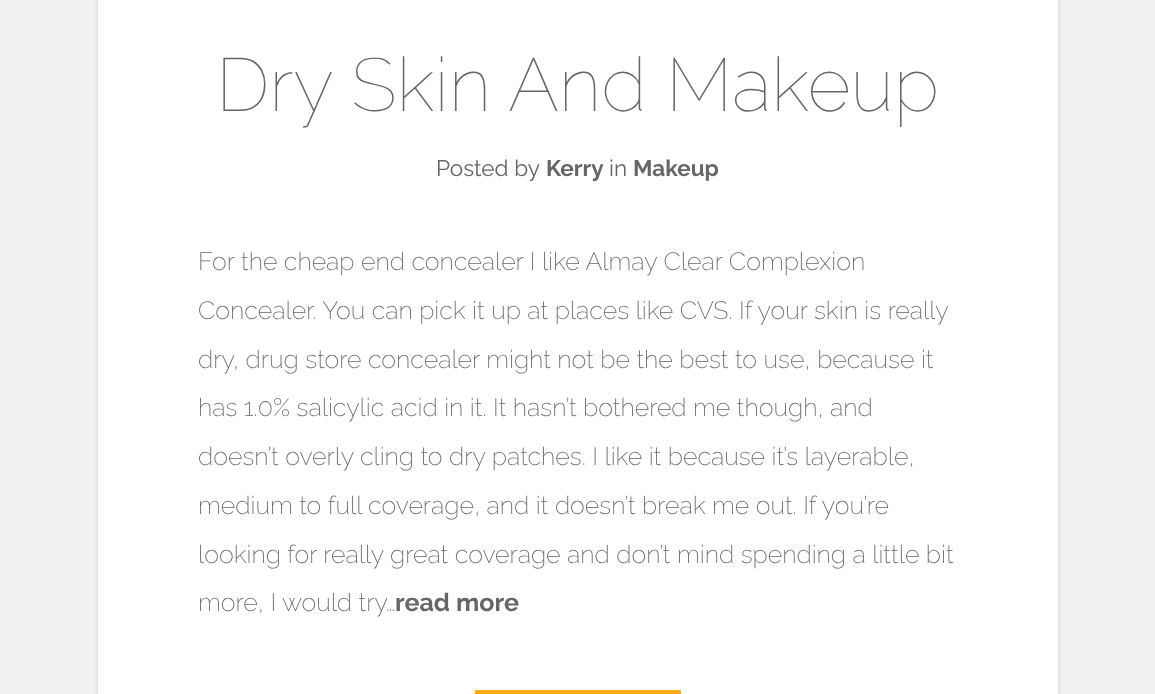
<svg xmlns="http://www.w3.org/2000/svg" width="1155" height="694">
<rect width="100%" height="100%" fill="#f1f1f1"/>
<rect x="98" y="-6" width="960" height="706" fill="#00000026" filter="blur(2px)"/>
<rect x="98" width="960" height="694" fill="#fff"/>
<text x="216" y="111" style="font-family:Raleway;font-size:75px;font-weight:100;fill:#666">Dry Skin And Makeup</text>
<text x="436" y="176" style="font-family:Raleway;font-size:22.5px;fill:#666">Posted by</text>
<text x="546" y="176" style="font-family:Raleway;font-size:22.5px;font-weight:bold;fill:#666">Kerry</text>
<text x="609" y="176" style="font-family:Raleway;font-size:22.5px;fill:#666">in</text>
<text x="633" y="176" style="font-family:Raleway;font-size:22.5px;font-weight:bold;fill:#666">Makeup</text>
<text x="198" y="270" style="font-family:Raleway;font-size:25px;font-weight:200;fill:#666">For the cheap end concealer I like Almay Clear Complexion</text>
<text x="198" y="319" style="font-family:Raleway;font-size:25px;font-weight:200;fill:#666">Concealer. You can pick it up at places like CVS. If your skin is really</text>
<text x="198" y="368" style="font-family:Raleway;font-size:25px;font-weight:200;fill:#666">dry, drug store concealer might not be the best to use, because it</text>
<text x="198" y="416" style="font-family:Raleway;font-size:25px;font-weight:200;fill:#666">has 1.0% salicylic acid in it. It hasn’t bothered me though, and</text>
<text x="198" y="465" style="font-family:Raleway;font-size:25px;font-weight:200;fill:#666">doesn’t overly cling to dry patches. I like it because it’s layerable,</text>
<text x="198" y="514" style="font-family:Raleway;font-size:25px;font-weight:200;fill:#666">medium to full coverage, and it doesn’t break me out. If you’re</text>
<text x="198" y="563" style="font-family:Raleway;font-size:25px;font-weight:200;fill:#666">looking for really great coverage and don’t mind spending a little bit</text>
<text x="198" y="611" style="font-family:Raleway;font-size:25px;font-weight:200;fill:#666">more, I would try…</text>
<text x="395" y="611" style="font-family:Raleway;font-size:25px;font-weight:bold;fill:#666">read more</text>
<rect x="475" y="690" width="206" height="4" fill="#fbad18"/>
</svg>
